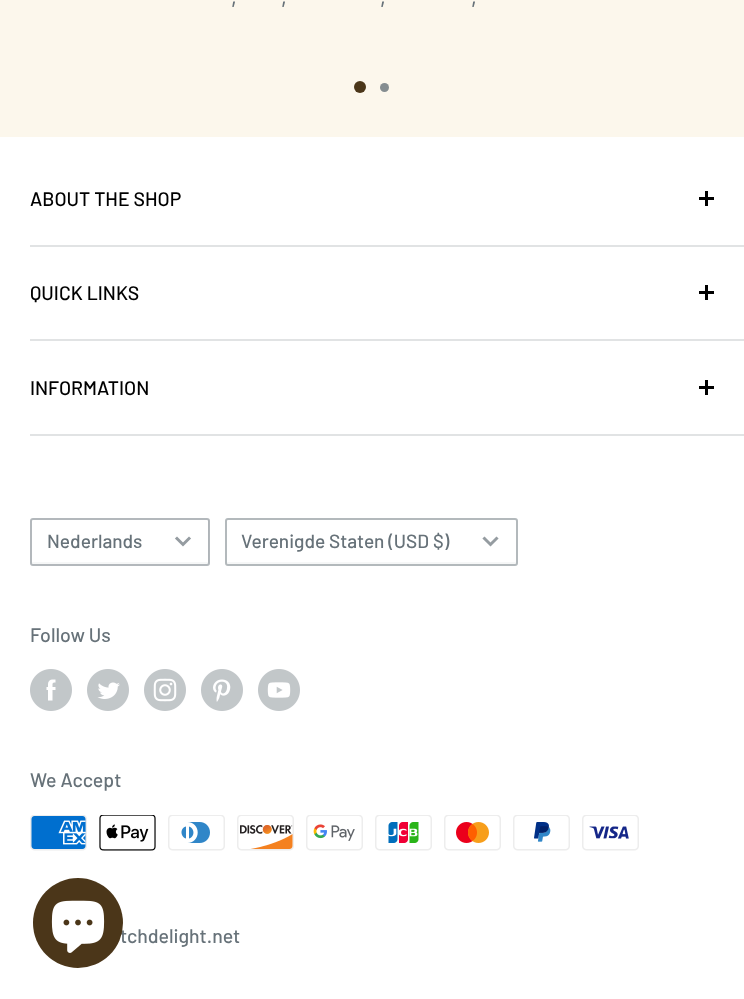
<svg xmlns="http://www.w3.org/2000/svg" width="744" height="999">
<rect width="100%" height="100%" fill="#fcf7ec"/>
<text x="231" y="5" style="font-family:Barlow;font-size:22px;font-weight:500;fill:#677279">,</text>
<text x="281" y="5" style="font-family:Barlow;font-size:22px;font-weight:500;fill:#677279">,</text>
<text x="380" y="5" style="font-family:Barlow;font-size:22px;font-weight:500;fill:#677279">,</text>
<text x="471" y="5" style="font-family:Barlow;font-size:22px;font-weight:500;fill:#677279">,</text>
<circle cx="360" cy="87" r="6" fill="#4b3619"/>
<circle cx="384.5" cy="87.5" r="4.5" fill="#858d90"/>
<rect y="137" width="744" height="862" fill="#fff"/>
<rect x="30" y="245" width="714" height="2" fill="#e1e3e4"/>
<text x="30" y="206" style="font-family:Barlow;font-size:19.5px;font-weight:500;fill:#000">ABOUT THE SHOP</text>
<rect x="705" y="191" width="3" height="15" fill="#000"/>
<rect x="699" y="197" width="15" height="3" fill="#000"/>
<rect x="30" y="339" width="714" height="2" fill="#e1e3e4"/>
<text x="30" y="300" style="font-family:Barlow;font-size:19.5px;font-weight:500;fill:#000">QUICK LINKS</text>
<rect x="705" y="285" width="3" height="15" fill="#000"/>
<rect x="699" y="291" width="15" height="3" fill="#000"/>
<rect x="30" y="434" width="714" height="2" fill="#e1e3e4"/>
<text x="30" y="395" style="font-family:Barlow;font-size:19.5px;font-weight:500;fill:#000">INFORMATION</text>
<rect x="705" y="380" width="3" height="15" fill="#000"/>
<rect x="699" y="386" width="15" height="3" fill="#000"/>
<path d="M32 561v1c0 1 1 2 2 2h174c0 0 1-1 1-2v-42c0 0 0-1-1-1v42c0 1 0 1-1 1h-174c-1 0-1 0-1-1z" fill="#f6f7f7"/>
<rect x="31" y="519" width="178" height="46" rx="2" fill="none" stroke="#67727980" stroke-width="2"/>
<text x="47" y="548" style="font-family:Barlow;font-size:19.1px;font-weight:500;fill:#677279">Nederlands</text>
<path d="M189 538.5l-6 6l-6-6" fill="none" stroke="#959ca1" stroke-width="3" stroke-linecap="square"/>
<path d="M227 562c0 1 1 2 1 2h286c1 0 2-1 2-2v-1c0 1-1 1-2 1z" fill="#f6f7f7"/>
<rect x="226" y="519" width="291" height="46" rx="2" fill="none" stroke="#b3b9bc" stroke-width="2"/>
<text x="241" y="548" style="font-family:Barlow;font-size:19.1px;font-weight:500;fill:#677279">Verenigde Staten (USD $)</text>
<path d="M496.5 538.5l-6 6l-6-6" fill="none" stroke="#959ca1" stroke-width="3" stroke-linecap="square"/>
<text x="30" y="642" style="font-family:Barlow;font-size:19.5px;font-weight:500;fill:#677279">Follow Us</text>
<image x="30" y="669" width="42" height="42" href="media/1.png"/>
<image x="87" y="669" width="42" height="42" href="media/2.png"/>
<image x="144" y="669" width="42" height="42" href="media/3.png"/>
<image x="201" y="669" width="42" height="42" href="media/4.png"/>
<image x="258" y="669" width="42" height="42" href="media/5.png"/>
<text x="30" y="787" style="font-family:Barlow;font-size:19.5px;font-weight:500;fill:#677279">We Accept</text>
<image x="30" y="815" width="57" height="36" href="media/6.png"/>
<image x="99" y="815" width="57" height="36" href="media/7.png"/>
<image x="168" y="815" width="57" height="36" href="media/8.png"/>
<image x="237" y="815" width="57" height="36" href="media/9.png"/>
<image x="306" y="815" width="57" height="36" href="media/10.png"/>
<image x="375" y="815" width="57" height="36" href="media/11.png"/>
<image x="444" y="815" width="57" height="36" href="media/12.png"/>
<image x="513" y="815" width="57" height="36" href="media/13.png"/>
<image x="582" y="815" width="57" height="36" href="media/14.png"/>
<text x="120" y="943" style="font-family:Barlow;font-size:19.5px;font-weight:500;fill:#677279">tchdelight.net</text>
<circle cx="78" cy="923" r="45" fill="#4b3619"/>
<image x="51" y="900" width="54" height="53" href="media/15.png"/>
</svg>
